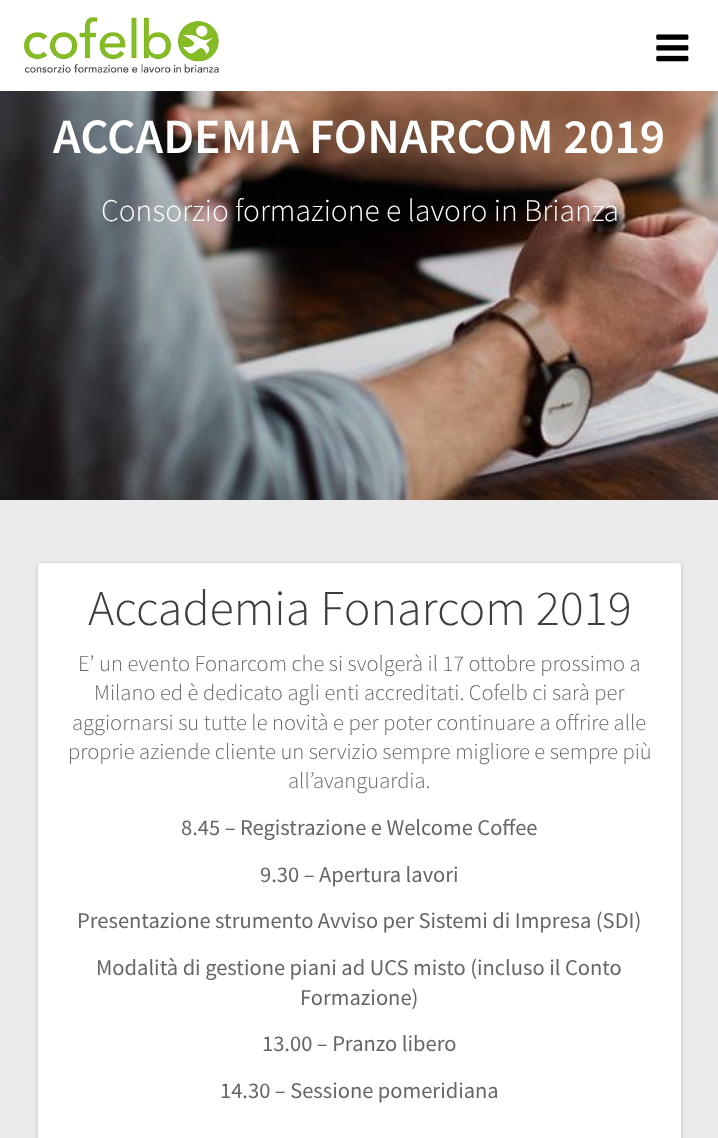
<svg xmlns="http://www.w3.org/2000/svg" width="718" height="1138">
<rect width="100%" height="100%" fill="#ebebeb"/>
<rect width="718" height="91" fill="#fff"/>
<image x="23" y="16" width="196" height="58" href="media/1.png"/>
<image x="656" y="34" width="33" height="28" href="media/2.png"/>
<image x="0" y="91" width="718" height="409" href="media/3.png"/>
<text x="53" y="153" style="font-family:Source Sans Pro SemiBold;font-size:49.5px;font-weight:600;fill:#fff">ACCADEMIA FONARCOM 2019</text>
<text x="101" y="221" style="font-family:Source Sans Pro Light;font-size:31.5px;font-weight:300;fill:#fff">Consorzio formazione e lavoro in Brianza</text>
<rect x="38" y="564" width="643" height="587" rx="4" fill="#0000001f" filter="blur(3px)"/>
<rect x="38" y="564" width="643" height="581" rx="4" fill="#00000024" filter="blur(1px)"/>
<rect x="38" y="563" width="643" height="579" rx="4" fill="#fff"/>
<text x="88" y="625" style="font-family:Source Sans Pro Light;font-size:50px;font-weight:300;fill:#3d3d3d">Accademia Fonarcom 2019</text>
<text x="78" y="671" style="font-family:Source Sans Pro Light;font-size:22.5px;font-weight:300;fill:#666">E’ un evento Fonarcom che si svolgerà il 17 ottobre prossimo a</text>
<text x="94" y="700" style="font-family:Source Sans Pro Light;font-size:22.5px;font-weight:300;fill:#666">Milano ed è dedicato agli enti accreditati. Cofelb ci sarà per</text>
<text x="72" y="730" style="font-family:Source Sans Pro Light;font-size:22.5px;font-weight:300;fill:#666">aggiornarsi su tutte le novità e per poter continuare a offrire alle</text>
<text x="68" y="759" style="font-family:Source Sans Pro Light;font-size:22.5px;font-weight:300;fill:#666">proprie aziende cliente un servizio sempre migliore e sempre più</text>
<text x="288" y="788" style="font-family:Source Sans Pro Light;font-size:22.5px;font-weight:300;fill:#666">all’avanguardia.</text>
<text x="181" y="835" style="font-family:Source Sans Pro;font-size:22.5px;fill:#666">8.45 – Registrazione e Welcome Coffee</text>
<text x="260" y="882" style="font-family:Source Sans Pro;font-size:22.5px;fill:#666">9.30 – Apertura lavori</text>
<text x="77" y="928" style="font-family:Source Sans Pro;font-size:22.5px;fill:#666">Presentazione strumento Avviso per Sistemi di Impresa (SDI)</text>
<text x="96" y="975" style="font-family:Source Sans Pro;font-size:22.5px;fill:#666">Modalità di gestione piani ad UCS misto (incluso il Conto</text>
<text x="300" y="1005" style="font-family:Source Sans Pro;font-size:22.5px;fill:#666">Formazione)</text>
<text x="262" y="1051" style="font-family:Source Sans Pro;font-size:22.5px;fill:#666">13.00 – Pranzo libero</text>
<text x="220" y="1098" style="font-family:Source Sans Pro;font-size:22.5px;fill:#666">14.30 – Sessione pomeridiana</text>
</svg>
